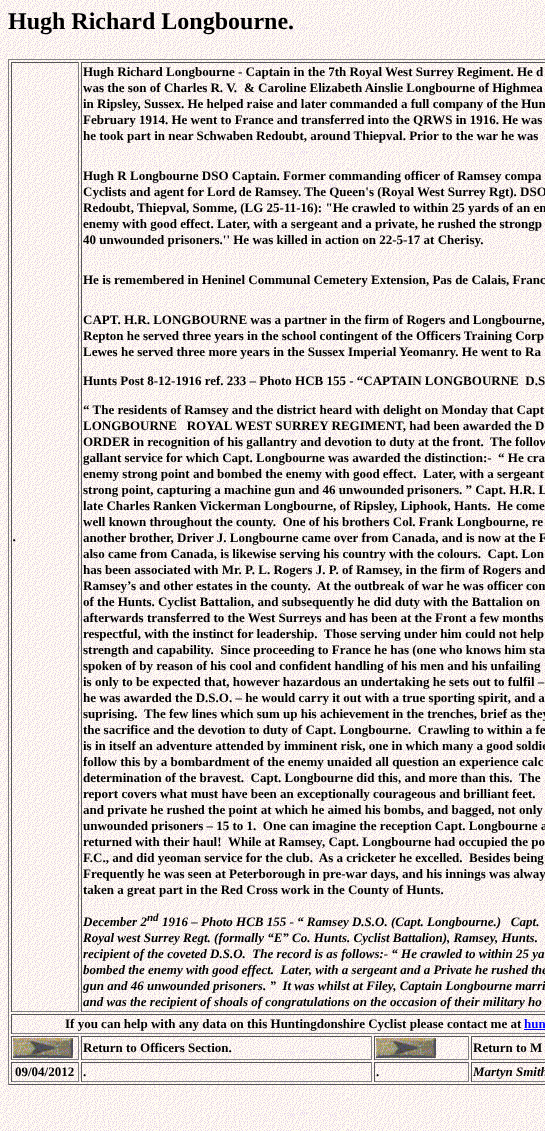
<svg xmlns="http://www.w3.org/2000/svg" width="545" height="1131">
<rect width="100%" height="100%" fill="#fff"/>
<image x="0" y="0" width="545" height="1131" href="media/1.png"/>
<text x="8" y="29" style="font-family:Liberation Serif;font-size:24px;font-weight:bold;fill:#000">Hugh Richard Longbourne.</text>
<rect x="8" y="59" width="537" height="1" fill="#808080"/>
<rect x="8" y="1084" width="537" height="1" fill="#555"/>
<rect x="8" y="59" width="1" height="1026" fill="#808080"/>
<rect x="11" y="62" width="68" height="1" fill="#555"/>
<rect x="78" y="62" width="1" height="950" fill="#808080"/>
<rect x="11" y="1011" width="68" height="1" fill="#808080"/>
<rect x="11" y="62" width="1" height="950" fill="#555"/>
<text x="13" y="541" style="font-family:Liberation Serif;font-size:13px;font-weight:bold;font-style:italic;fill:#000">.</text>
<rect x="81" y="62" width="464" height="1" fill="#555"/>
<rect x="81" y="1011" width="464" height="1" fill="#808080"/>
<rect x="81" y="62" width="1" height="950" fill="#555"/>
<text x="83" y="76" style="font-family:Liberation Serif;font-size:13px;font-weight:bold;fill:#000">Hugh Richard Longbourne - Captain in the 7th Royal West Surrey Regiment. He d</text>
<text x="83" y="92" style="font-family:Liberation Serif;font-size:13px;font-weight:bold;fill:#000">was the son of Charles R. V.</text>
<text x="244" y="92" style="font-family:Liberation Serif;font-size:13px;font-weight:bold;fill:#000">&amp; Caroline Elizabeth Ainslie Longbourne of Highmea</text>
<text x="83" y="108" style="font-family:Liberation Serif;font-size:13px;font-weight:bold;fill:#000">in Ripsley, Sussex. He helped raise and later commanded a full company of the Hun</text>
<text x="83" y="124" style="font-family:Liberation Serif;font-size:13px;font-weight:bold;fill:#000">February 1914. He went to France and transferred into the QRWS in 1916. He was</text>
<text x="83" y="140" style="font-family:Liberation Serif;font-size:13px;font-weight:bold;fill:#000">he took part in near Schwaben Redoubt, around Thiepval. Prior to the war he was</text>
<text x="83" y="180" style="font-family:Liberation Serif;font-size:13px;font-weight:bold;fill:#000">Hugh R Longbourne DSO Captain. Former commanding officer of Ramsey compa</text>
<text x="83" y="196" style="font-family:Liberation Serif;font-size:13px;font-weight:bold;fill:#000">Cyclists and agent for Lord de Ramsey. The Queen's (Royal West Surrey Rgt). DSO</text>
<text x="83" y="212" style="font-family:Liberation Serif;font-size:13px;font-weight:bold;fill:#000">Redoubt, Thiepval, Somme, (LG 25-11-16): "He crawled to within 25 yards of an en</text>
<text x="83" y="228" style="font-family:Liberation Serif;font-size:13px;font-weight:bold;fill:#000">enemy with good effect. Later, with a sergeant and a private, he rushed the strongp</text>
<text x="83" y="244" style="font-family:Liberation Serif;font-size:13px;font-weight:bold;fill:#000">40 unwounded prisoners.'' He was killed in action on 22-5-17 at Cherisy.</text>
<text x="83" y="284" style="font-family:Liberation Serif;font-size:13px;font-weight:bold;fill:#000">He is remembered in Heninel Communal Cemetery Extension, Pas de Calais, Franc</text>
<text x="83" y="324" style="font-family:Liberation Serif;font-size:13px;font-weight:bold;fill:#000">CAPT. H.R. LONGBOURNE was a partner in the firm of Rogers and Longbourne,</text>
<text x="83" y="340" style="font-family:Liberation Serif;font-size:13px;font-weight:bold;fill:#000">Repton he served three years in the school contingent of the Officers Training Corp</text>
<text x="83" y="356" style="font-family:Liberation Serif;font-size:13px;font-weight:bold;fill:#000">Lewes he served three more years in the Sussex Imperial Yeomanry. He went to Ra</text>
<text x="83" y="385" style="font-family:Liberation Serif;font-size:13px;font-weight:bold;fill:#000" xml:space="preserve">Hunts Post 8-12-1916 ref. 233 – Photo HCB 155 - “CAPTAIN LONGBOURNE  D.S</text>
<text x="83" y="414" style="font-family:Liberation Serif;font-size:13px;font-weight:bold;fill:#000">“ The residents of Ramsey and the district heard with delight on Monday that Capt</text>
<text x="83" y="430" style="font-family:Liberation Serif;font-size:13px;font-weight:bold;fill:#000" xml:space="preserve">LONGBOURNE   ROYAL WEST SURREY REGIMENT, had been awarded the D</text>
<text x="83" y="446" style="font-family:Liberation Serif;font-size:13px;font-weight:bold;fill:#000" xml:space="preserve">ORDER in recognition of his gallantry and devotion to duty at the front.  The follow</text>
<text x="83" y="462" style="font-family:Liberation Serif;font-size:13px;font-weight:bold;fill:#000" xml:space="preserve">gallant service for which Capt. Longbourne was awarded the distinction:-  “ He cra</text>
<text x="83" y="478" style="font-family:Liberation Serif;font-size:13px;font-weight:bold;fill:#000">enemy strong point and bombed the enemy with good effect.</text>
<text x="423" y="478" style="font-family:Liberation Serif;font-size:13px;font-weight:bold;fill:#000">Later, with a sergeant</text>
<text x="83" y="494" style="font-family:Liberation Serif;font-size:13px;font-weight:bold;fill:#000">strong point, capturing a machine gun and 46 unwounded prisoners. ” Capt. H.R. L</text>
<text x="83" y="510" style="font-family:Liberation Serif;font-size:13px;font-weight:bold;fill:#000" xml:space="preserve">late Charles Ranken Vickerman Longbourne, of Ripsley, Liphook, Hants.  He come</text>
<text x="83" y="526" style="font-family:Liberation Serif;font-size:13px;font-weight:bold;fill:#000" xml:space="preserve">well known throughout the county.  One of his brothers Col. Frank Longbourne, re</text>
<text x="83" y="542" style="font-family:Liberation Serif;font-size:13px;font-weight:bold;fill:#000">another brother, Driver J. Longbourne came over from Canada, and is now at the F</text>
<text x="83" y="558" style="font-family:Liberation Serif;font-size:13px;font-weight:bold;fill:#000" xml:space="preserve">also came from Canada, is likewise serving his country with the colours.  Capt. Lon</text>
<text x="83" y="574" style="font-family:Liberation Serif;font-size:13px;font-weight:bold;fill:#000">has been associated with Mr. P. L. Rogers J. P. of Ramsey, in the firm of Rogers and</text>
<text x="83" y="590" style="font-family:Liberation Serif;font-size:13px;font-weight:bold;fill:#000" xml:space="preserve">Ramsey’s and other estates in the county.  At the outbreak of war he was officer com</text>
<text x="83" y="606" style="font-family:Liberation Serif;font-size:13px;font-weight:bold;fill:#000">of the Hunts. Cyclist Battalion, and subsequently he did duty with the Battalion on</text>
<text x="83" y="622" style="font-family:Liberation Serif;font-size:13px;font-weight:bold;fill:#000">afterwards transferred to the West Surreys and has been at the Front a few months</text>
<text x="83" y="638" style="font-family:Liberation Serif;font-size:13px;font-weight:bold;fill:#000" xml:space="preserve">respectful, with the instinct for leadership.  Those serving under him could not help</text>
<text x="83" y="654" style="font-family:Liberation Serif;font-size:13px;font-weight:bold;fill:#000" xml:space="preserve">strength and capability.  Since proceeding to France he has (one who knows him sta</text>
<text x="83" y="670" style="font-family:Liberation Serif;font-size:13px;font-weight:bold;fill:#000">spoken of by reason of his cool and confident handling of his men and his unfailing</text>
<text x="83" y="686" style="font-family:Liberation Serif;font-size:13px;font-weight:bold;fill:#000">is only to be expected that, however hazardous an undertaking he sets out to fulfil –</text>
<text x="83" y="702" style="font-family:Liberation Serif;font-size:13px;font-weight:bold;fill:#000">he was awarded the D.S.O. – he would carry it out with a true sporting spirit, and a</text>
<text x="83" y="718" style="font-family:Liberation Serif;font-size:13px;font-weight:bold;fill:#000">suprising.</text>
<text x="144" y="718" style="font-family:Liberation Serif;font-size:13px;font-weight:bold;fill:#000">The few lines which sum up his achievement in the trenches, brief as they</text>
<text x="83" y="734" style="font-family:Liberation Serif;font-size:13px;font-weight:bold;fill:#000" xml:space="preserve">the sacrifice and the devotion to duty of Capt. Longbourne.  Crawling to within a fe</text>
<text x="83" y="750" style="font-family:Liberation Serif;font-size:13px;font-weight:bold;fill:#000">is in itself an adventure attended by imminent risk, one in which many a good soldie</text>
<text x="83" y="766" style="font-family:Liberation Serif;font-size:13px;font-weight:bold;fill:#000">follow this by a bombardment of the enemy unaided all question an experience calc</text>
<text x="83" y="782" style="font-family:Liberation Serif;font-size:13px;font-weight:bold;fill:#000" xml:space="preserve">determination of the bravest.  Capt. Longbourne did this, and more than this.  The</text>
<text x="83" y="798" style="font-family:Liberation Serif;font-size:13px;font-weight:bold;fill:#000">report covers what must have been an exceptionally courageous and brilliant feet.</text>
<text x="83" y="814" style="font-family:Liberation Serif;font-size:13px;font-weight:bold;fill:#000">and private he rushed the point at which he aimed his bombs, and bagged, not only</text>
<text x="83" y="830" style="font-family:Liberation Serif;font-size:13px;font-weight:bold;fill:#000" xml:space="preserve">unwounded prisoners – 15 to 1.  One can imagine the reception Capt. Longbourne a</text>
<text x="83" y="846" style="font-family:Liberation Serif;font-size:13px;font-weight:bold;fill:#000">returned with their haul!</text>
<text x="228" y="846" style="font-family:Liberation Serif;font-size:13px;font-weight:bold;fill:#000">While at Ramsey, Capt. Longbourne had occupied the po</text>
<text x="83" y="862" style="font-family:Liberation Serif;font-size:13px;font-weight:bold;fill:#000" xml:space="preserve">F.C., and did yeoman service for the club.  As a cricketer he excelled.  Besides being</text>
<text x="83" y="878" style="font-family:Liberation Serif;font-size:13px;font-weight:bold;fill:#000">Frequently he was seen at Peterborough in pre-war days, and his innings was alway</text>
<text x="83" y="894" style="font-family:Liberation Serif;font-size:13px;font-weight:bold;fill:#000">taken a great part in the Red Cross work in the County of Hunts.</text>
<text x="83" y="926" style="font-family:Liberation Serif;font-size:13px;font-weight:bold;font-style:italic;fill:#000">December 2</text>
<text x="147" y="921" style="font-family:Liberation Serif;font-size:11px;font-weight:bold;font-style:italic;fill:#000">nd</text>
<text x="162" y="926" style="font-family:Liberation Serif;font-size:13px;font-weight:bold;font-style:italic;fill:#000" xml:space="preserve">1916 – Photo HCB 155 - “ Ramsey D.S.O. (Capt. Longbourne.)   Capt.</text>
<text x="83" y="942" style="font-family:Liberation Serif;font-size:13px;font-weight:bold;font-style:italic;fill:#000">Royal west Surrey Regt. (formally “E” Co. Hunts. Cyclist Battalion), Ramsey, Hunts.</text>
<text x="83" y="958" style="font-family:Liberation Serif;font-size:13px;font-weight:bold;font-style:italic;fill:#000" xml:space="preserve">recipient of the coveted D.S.O.  The record is as follows:- “ He crawled to within 25 ya</text>
<text x="83" y="974" style="font-family:Liberation Serif;font-size:13px;font-weight:bold;font-style:italic;fill:#000" xml:space="preserve">bombed the enemy with good effect.  Later, with a sergeant and a Private he rushed the</text>
<text x="83" y="990" style="font-family:Liberation Serif;font-size:13px;font-weight:bold;font-style:italic;fill:#000" xml:space="preserve">gun and 46 unwounded prisoners. ”  It was whilst at Filey, Captain Longbourne marri</text>
<text x="83" y="1006" style="font-family:Liberation Serif;font-size:13px;font-weight:bold;font-style:italic;fill:#000">and was the recipient of shoals of congratulations on the occasion of their military ho</text>
<rect x="11" y="1014" width="534" height="1" fill="#555"/>
<rect x="11" y="1033" width="534" height="1" fill="#808080"/>
<rect x="11" y="1014" width="1" height="20" fill="#555"/>
<text x="65" y="1028" style="font-family:Liberation Serif;font-size:13px;font-weight:bold;fill:#000">If you can help with any data on this Huntingdonshire Cyclist please contact me at</text>
<text x="524" y="1028" style="font-family:Liberation Serif;font-size:13px;font-weight:bold;fill:#00f">hun</text>
<rect x="524" y="1029" width="21" height="1" fill="#00f"/>
<rect x="11" y="1036" width="68" height="1" fill="#555"/>
<rect x="78" y="1036" width="1" height="24" fill="#808080"/>
<rect x="11" y="1059" width="68" height="1" fill="#808080"/>
<rect x="11" y="1036" width="1" height="24" fill="#555"/>
<image x="13" y="1038" width="60" height="20" href="media/2.png"/>
<rect x="81" y="1036" width="291" height="1" fill="#555"/>
<rect x="371" y="1036" width="1" height="24" fill="#808080"/>
<rect x="81" y="1059" width="291" height="1" fill="#808080"/>
<rect x="81" y="1036" width="1" height="24" fill="#555"/>
<text x="83" y="1052" style="font-family:Liberation Serif;font-size:13px;font-weight:bold;fill:#000">Return to Officers Section.</text>
<rect x="374" y="1036" width="95" height="1" fill="#555"/>
<rect x="468" y="1036" width="1" height="24" fill="#808080"/>
<rect x="374" y="1059" width="95" height="1" fill="#808080"/>
<rect x="374" y="1036" width="1" height="24" fill="#555"/>
<image x="376" y="1038" width="60" height="20" href="media/2.png"/>
<rect x="471" y="1036" width="74" height="1" fill="#555"/>
<rect x="471" y="1059" width="74" height="1" fill="#808080"/>
<rect x="471" y="1036" width="1" height="24" fill="#555"/>
<text x="473" y="1052" style="font-family:Liberation Serif;font-size:13px;font-weight:bold;fill:#000">Return to M</text>
<rect x="11" y="1062" width="68" height="1" fill="#555"/>
<rect x="78" y="1062" width="1" height="20" fill="#808080"/>
<rect x="11" y="1081" width="68" height="1" fill="#808080"/>
<rect x="11" y="1062" width="1" height="20" fill="#555"/>
<text x="15" y="1076" style="font-family:Liberation Serif;font-size:13px;font-weight:bold;fill:#000">09/04/2012</text>
<rect x="81" y="1062" width="291" height="1" fill="#555"/>
<rect x="371" y="1062" width="1" height="20" fill="#808080"/>
<rect x="81" y="1081" width="291" height="1" fill="#808080"/>
<rect x="81" y="1062" width="1" height="20" fill="#555"/>
<text x="83" y="1076" style="font-family:Liberation Serif;font-size:13px;font-weight:bold;fill:#000">.</text>
<rect x="374" y="1062" width="95" height="1" fill="#555"/>
<rect x="468" y="1062" width="1" height="20" fill="#808080"/>
<rect x="374" y="1081" width="95" height="1" fill="#808080"/>
<rect x="374" y="1062" width="1" height="20" fill="#555"/>
<text x="376" y="1076" style="font-family:Liberation Serif;font-size:13px;font-weight:bold;fill:#000">.</text>
<rect x="471" y="1062" width="74" height="1" fill="#555"/>
<rect x="471" y="1081" width="74" height="1" fill="#808080"/>
<rect x="471" y="1062" width="1" height="20" fill="#555"/>
<text x="473" y="1076" style="font-family:Liberation Serif;font-size:13px;font-weight:bold;font-style:italic;fill:#000">Martyn Smith</text>
</svg>
